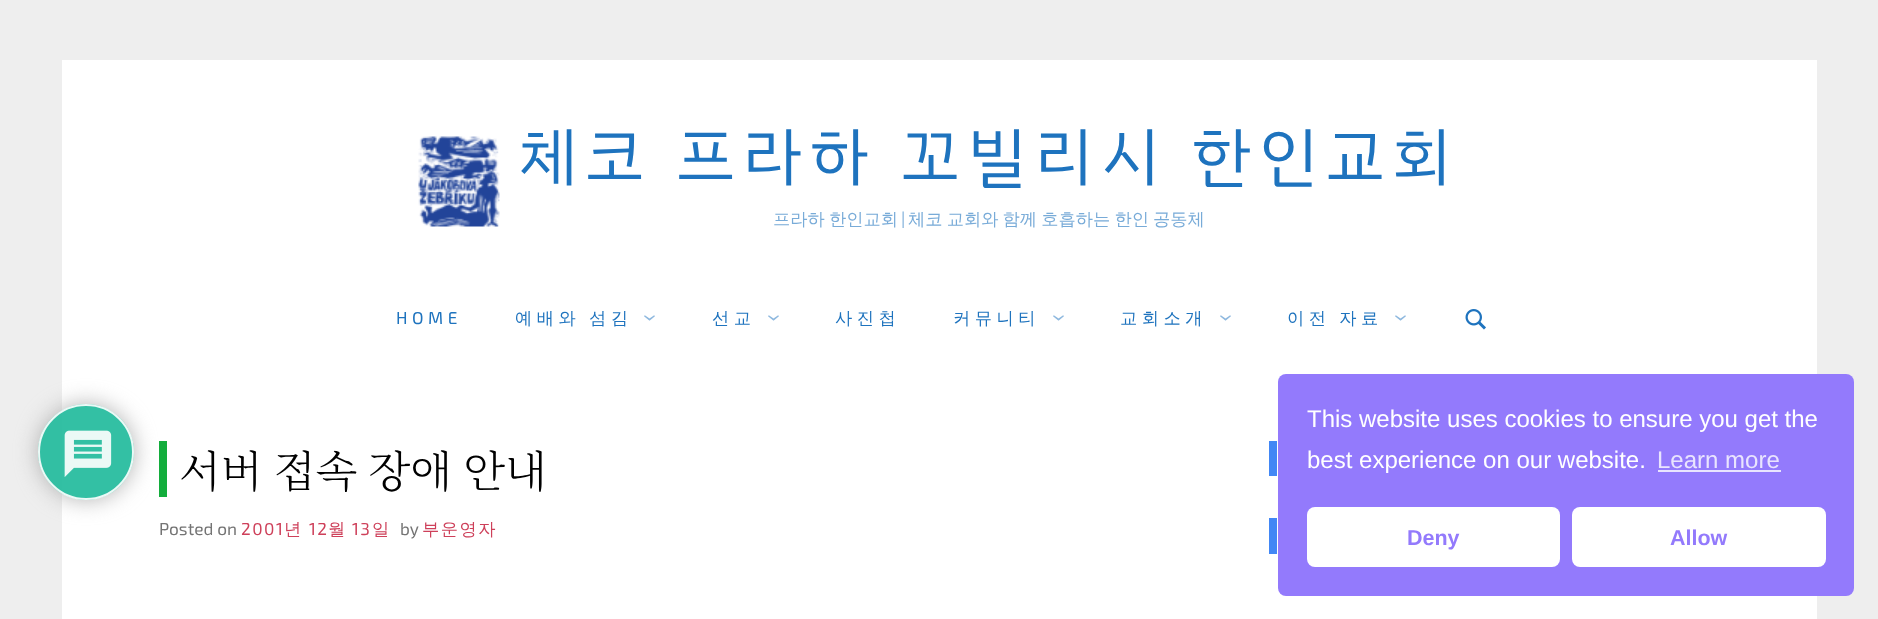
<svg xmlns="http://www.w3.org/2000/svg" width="1878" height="619">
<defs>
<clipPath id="clip1"><path d="M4 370h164v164h-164zm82 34c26.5 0 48 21.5 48 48c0 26.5-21.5 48-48 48c-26.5 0-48-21.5-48-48c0-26.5 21.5-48 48-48z" clip-rule="evenodd"/></clipPath>
</defs>
<rect width="100%" height="100%" fill="#eee"/>
<rect x="62" y="60" width="1755" height="559" fill="#fff"/>
<rect x="159" y="441" width="8" height="56" fill="#13ad3c"/>
<g clip-path="url(#clip1)">
<rect x="38" y="404" width="96" height="96" rx="48" fill="#aaaaaae6" filter="blur(11px)"/>
</g>
<circle cx="86" cy="452" r="48" fill="#1db99ae6"/>
<circle cx="86" cy="452" r="47" fill="none" stroke="#ffffffe6" stroke-width="2"/>
<image x="64" y="430" width="48" height="47" href="media/1.png"/>
<image x="418" y="136" width="82" height="91" href="media/2.png"/>
<text x="519" y="179" style="font-family:IBM Plex Sans KR;font-size:64.75px;letter-spacing:9px;fill:#1e73be">체코 프라하 꼬빌리시 한인교회</text>
<text x="773" y="225" word-spacing="-1" style="font-family:WenQuanYi Zen Hei;font-size:17.25px;font-weight:500;fill:#78abd8">프라하 한인교회</text>
<text x="901" y="225" style="font-family:'Exo 2';font-size:17.25px;fill:#78abd8">|</text>
<text x="908" y="225" word-spacing="-1" style="font-family:WenQuanYi Zen Hei;font-size:17.25px;font-weight:500;fill:#78abd8">체코 교회와 함께 호흡하는 한인 공동체</text>
<text x="396" y="324" style="font-family:'Exo 2';font-size:17.25px;letter-spacing:4.5px;fill:#1e73be">HOME</text>
<text x="515" y="324" word-spacing="-1" style="font-family:WenQuanYi Zen Hei;font-size:17.25px;font-weight:500;letter-spacing:4.5px;fill:#1e73be">예배와 섬김</text>
<text x="643" y="314" transform="rotate(90 643 314)" style="font-family:'Exo 2';font-size:26px;letter-spacing:4.5px;fill:#8fb9df">›</text>
<text x="712" y="324" style="font-family:WenQuanYi Zen Hei;font-size:17.25px;font-weight:500;letter-spacing:4.5px;fill:#1e73be">선교</text>
<text x="767" y="314" transform="rotate(90 767 314)" style="font-family:'Exo 2';font-size:26px;letter-spacing:4.5px;fill:#8fb9df">›</text>
<text x="835" y="324" style="font-family:WenQuanYi Zen Hei;font-size:17.25px;font-weight:500;letter-spacing:4.5px;fill:#1e73be">사진첩</text>
<text x="953" y="324" style="font-family:WenQuanYi Zen Hei;font-size:17.25px;font-weight:500;letter-spacing:4.5px;fill:#1e73be">커뮤니티</text>
<text x="1052" y="314" transform="rotate(90 1052 314)" style="font-family:'Exo 2';font-size:26px;letter-spacing:4.5px;fill:#8fb9df">›</text>
<text x="1120" y="324" style="font-family:WenQuanYi Zen Hei;font-size:17.25px;font-weight:500;letter-spacing:4.5px;fill:#1e73be">교회소개</text>
<text x="1219" y="314" transform="rotate(90 1219 314)" style="font-family:'Exo 2';font-size:26px;letter-spacing:4.5px;fill:#8fb9df">›</text>
<text x="1287" y="324" word-spacing="-1" style="font-family:WenQuanYi Zen Hei;font-size:17.25px;font-weight:500;letter-spacing:4.5px;fill:#1e73be">이전 자료</text>
<text x="1394" y="314" transform="rotate(90 1394 314)" style="font-family:'Exo 2';font-size:26px;letter-spacing:4.5px;fill:#8fb9df">›</text>
<image x="1465" y="309" width="21" height="21" href="media/3.png"/>
<text x="179" y="487" style="font-family:Noto Serif KR;font-size:43.25px;font-weight:300;fill:#000">서버 접속 장애 안내</text>
<text x="159" y="535" style="font-family:'Exo 2';font-size:17.25px;fill:#747474">Posted on</text>
<text x="241" y="535" style="font-family:'Exo 2';font-size:17.25px;letter-spacing:1.5px;fill:#ce405a">2001</text>
<text x="284" y="535" style="font-family:WenQuanYi Zen Hei;font-size:17.25px;font-weight:500;letter-spacing:1.5px;fill:#ce405a">년</text>
<text x="309" y="535" style="font-family:'Exo 2';font-size:17.25px;letter-spacing:1.5px;fill:#ce405a">12</text>
<text x="328" y="535" style="font-family:WenQuanYi Zen Hei;font-size:17.25px;font-weight:500;letter-spacing:1.5px;fill:#ce405a">월</text>
<text x="352" y="535" style="font-family:'Exo 2';font-size:17.25px;letter-spacing:1.5px;fill:#ce405a">13</text>
<text x="372" y="535" style="font-family:WenQuanYi Zen Hei;font-size:17.25px;font-weight:500;letter-spacing:1.5px;fill:#ce405a">일</text>
<text x="400" y="535" style="font-family:'Exo 2';font-size:17.25px;fill:#747474">by</text>
<text x="422" y="535" style="font-family:WenQuanYi Zen Hei;font-size:17.25px;font-weight:500;letter-spacing:1.5px;fill:#ce405a">부운영자</text>
<rect x="1269" y="441" width="8" height="35" fill="#4287f5"/>
<rect x="1269" y="518" width="8" height="36" fill="#4287f5"/>
<rect x="1278" y="374" width="576" height="222" rx="8" fill="#937afc"/>
<text x="1307" y="427" style="font-family:Liberation Sans;font-size:24px;fill:#fff">This website uses cookies to ensure you get the</text>
<text x="1307" y="468" style="font-family:Liberation Sans;font-size:24px;fill:#fff">best experience on our website.</text>
<text x="1657" y="468" style="font-family:Liberation Sans;font-size:24px;fill:#e9e4fe">Learn more</text>
<rect x="1658" y="470" width="123" height="2" fill="#e9e4fe"/>
<rect x="1307" y="507" width="253" height="60" rx="8" fill="#fff"/>
<text x="1407" y="545" style="font-family:Liberation Sans;font-size:21.5px;font-weight:bold;fill:#937afc">Deny</text>
<rect x="1572" y="507" width="254" height="60" rx="8" fill="#fff"/>
<text x="1670" y="545" style="font-family:Liberation Sans;font-size:21.5px;font-weight:bold;fill:#937afc">Allow</text>
</svg>
